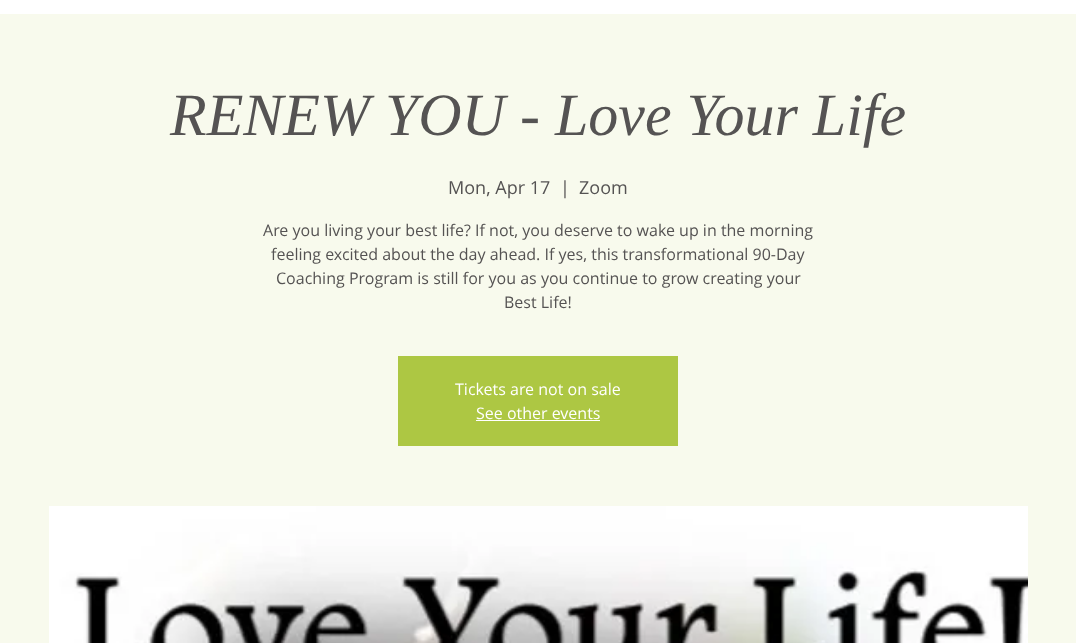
<svg xmlns="http://www.w3.org/2000/svg" width="1076" height="643">
<rect width="100%" height="100%" fill="#fff"/>
<rect y="14" width="1076" height="629" fill="#f8faed"/>
<text x="170" y="135" style="font-family:Liberation Serif;font-size:60px;font-style:italic;fill:#555353">RENEW YOU - Love Your Life</text>
<text x="448" y="194" style="font-family:Open Sans;font-size:18px;fill:#555353">Mon, Apr 17</text>
<text x="560" y="194" style="font-family:Open Sans;font-size:18px;fill:#555353">|</text>
<text x="579" y="194" style="font-family:Open Sans;font-size:18px;fill:#555353">Zoom</text>
<text x="263" y="236" style="font-family:Open Sans;font-size:16px;fill:#555353">Are you living your best life? If not, you deserve to wake up in the morning</text>
<text x="271" y="260" style="font-family:Open Sans;font-size:16px;fill:#555353">feeling excited about the day ahead. If yes, this transformational 90-Day</text>
<text x="276" y="284" style="font-family:Open Sans;font-size:16px;fill:#555353">Coaching Program is still for you as you continue to grow creating your</text>
<text x="504" y="308" style="font-family:Open Sans;font-size:16px;fill:#555353">Best Life!</text>
<rect x="398" y="356" width="280" height="90" fill="#adc743"/>
<text x="455" y="395" style="font-family:Open Sans;font-size:16px;fill:#fff">Tickets are not on sale</text>
<text x="476" y="419" style="font-family:Open Sans;font-size:16px;fill:#fff">See other events</text>
<rect x="476" y="420" width="124" height="1" fill="#fff"/>
<image x="49" y="506" width="979" height="137" href="media/1.png"/>
</svg>
